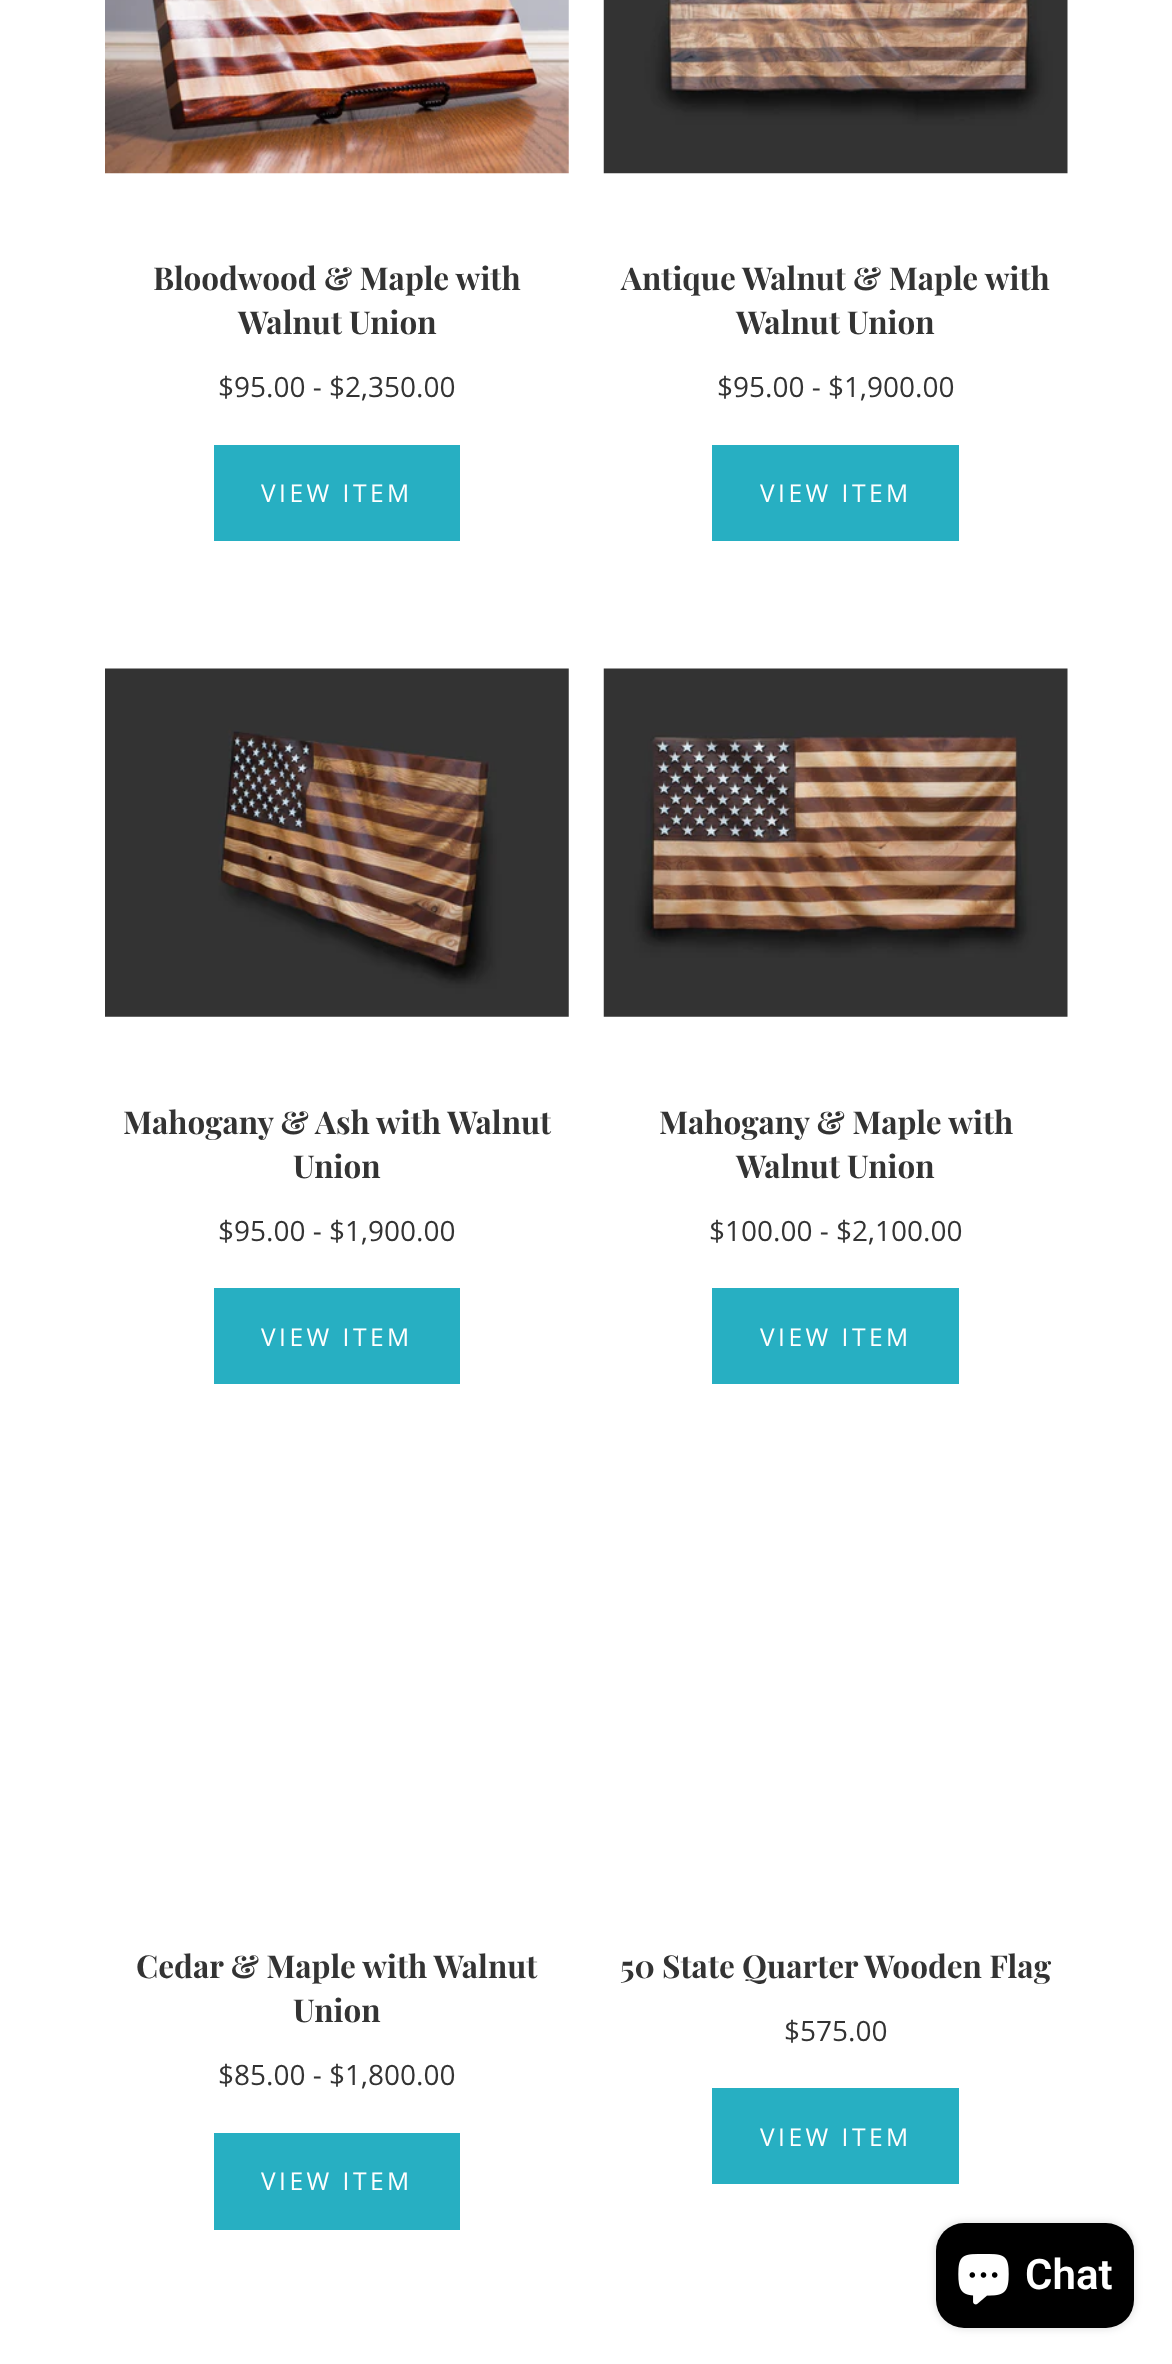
<svg xmlns="http://www.w3.org/2000/svg" width="1172" height="2364">
<rect width="100%" height="100%" fill="#fff"/>
<image x="105" y="0" width="464" height="174" href="media/1.png"/>
<text x="153" y="290" style="font-family:Playfair Display;font-size:31.5px;font-weight:bold;fill:#333">Bloodwood &amp; Maple with</text>
<text x="238" y="334" style="font-family:Playfair Display;font-size:31.5px;font-weight:bold;fill:#333">Walnut Union</text>
<text x="218" y="397" style="font-family:Open Sans;font-size:28px;fill:#333">$95.00 - $2,350.00</text>
<rect x="214" y="445" width="246" height="96" fill="#27afc2"/>
<text x="261" y="502" style="font-family:Open Sans;font-size:24.5px;letter-spacing:3.5px;fill:#fff">VIEW ITEM</text>
<image x="603" y="0" width="465" height="174" href="media/2.png"/>
<text x="621" y="290" style="font-family:Playfair Display;font-size:31.5px;font-weight:bold;fill:#333">Antique Walnut &amp; Maple with</text>
<text x="736" y="334" style="font-family:Playfair Display;font-size:31.5px;font-weight:bold;fill:#333">Walnut Union</text>
<text x="717" y="397" style="font-family:Open Sans;font-size:28px;fill:#333">$95.00 - $1,900.00</text>
<rect x="712" y="445" width="247" height="96" fill="#27afc2"/>
<text x="760" y="502" style="font-family:Open Sans;font-size:24.5px;letter-spacing:3.5px;fill:#fff">VIEW ITEM</text>
<image x="105" y="668" width="464" height="349" href="media/3.png"/>
<text x="123" y="1134" style="font-family:Playfair Display;font-size:31.5px;font-weight:bold;fill:#333">Mahogany &amp; Ash with Walnut</text>
<text x="293" y="1178" style="font-family:Playfair Display;font-size:31.5px;font-weight:bold;fill:#333">Union</text>
<text x="218" y="1241" style="font-family:Open Sans;font-size:28px;fill:#333">$95.00 - $1,900.00</text>
<rect x="214" y="1288" width="246" height="96" fill="#27afc2"/>
<text x="261" y="1346" style="font-family:Open Sans;font-size:24.5px;letter-spacing:3.5px;fill:#fff">VIEW ITEM</text>
<image x="603" y="668" width="465" height="349" href="media/4.png"/>
<text x="659" y="1134" style="font-family:Playfair Display;font-size:31.5px;font-weight:bold;fill:#333">Mahogany &amp; Maple with</text>
<text x="736" y="1178" style="font-family:Playfair Display;font-size:31.5px;font-weight:bold;fill:#333">Walnut Union</text>
<text x="709" y="1241" style="font-family:Open Sans;font-size:28px;fill:#333">$100.00 - $2,100.00</text>
<rect x="712" y="1288" width="247" height="96" fill="#27afc2"/>
<text x="760" y="1346" style="font-family:Open Sans;font-size:24.5px;letter-spacing:3.5px;fill:#fff">VIEW ITEM</text>
<text x="136" y="1978" style="font-family:Playfair Display;font-size:31.5px;font-weight:bold;fill:#333">Cedar &amp; Maple with Walnut</text>
<text x="293" y="2022" style="font-family:Playfair Display;font-size:31.5px;font-weight:bold;fill:#333">Union</text>
<text x="218" y="2085" style="font-family:Open Sans;font-size:28px;fill:#333">$85.00 - $1,800.00</text>
<rect x="214" y="2133" width="246" height="97" fill="#27afc2"/>
<text x="261" y="2190" style="font-family:Open Sans;font-size:24.5px;letter-spacing:3.5px;fill:#fff">VIEW ITEM</text>
<text x="620" y="1978" style="font-family:Playfair Display;font-size:31.5px;font-weight:bold;fill:#333">50 State Quarter Wooden Flag</text>
<text x="784" y="2041" style="font-family:Open Sans;font-size:28px;fill:#333">$575.00</text>
<rect x="712" y="2088" width="247" height="96" fill="#27afc2"/>
<text x="760" y="2146" style="font-family:Open Sans;font-size:24.5px;letter-spacing:3.5px;fill:#fff">VIEW ITEM</text>
<rect x="936" y="2223" width="198" height="105" rx="28" fill="#00000026" filter="blur(4.5px)"/>
<rect x="936" y="2223" width="198" height="105" rx="28" fill="#000"/>
<image x="958" y="2254" width="51" height="51" href="media/5.png"/>
<text x="1025" y="2289" style="font-family:Roboto;font-size:42px;font-weight:600;fill:#fff">Chat</text>
</svg>
